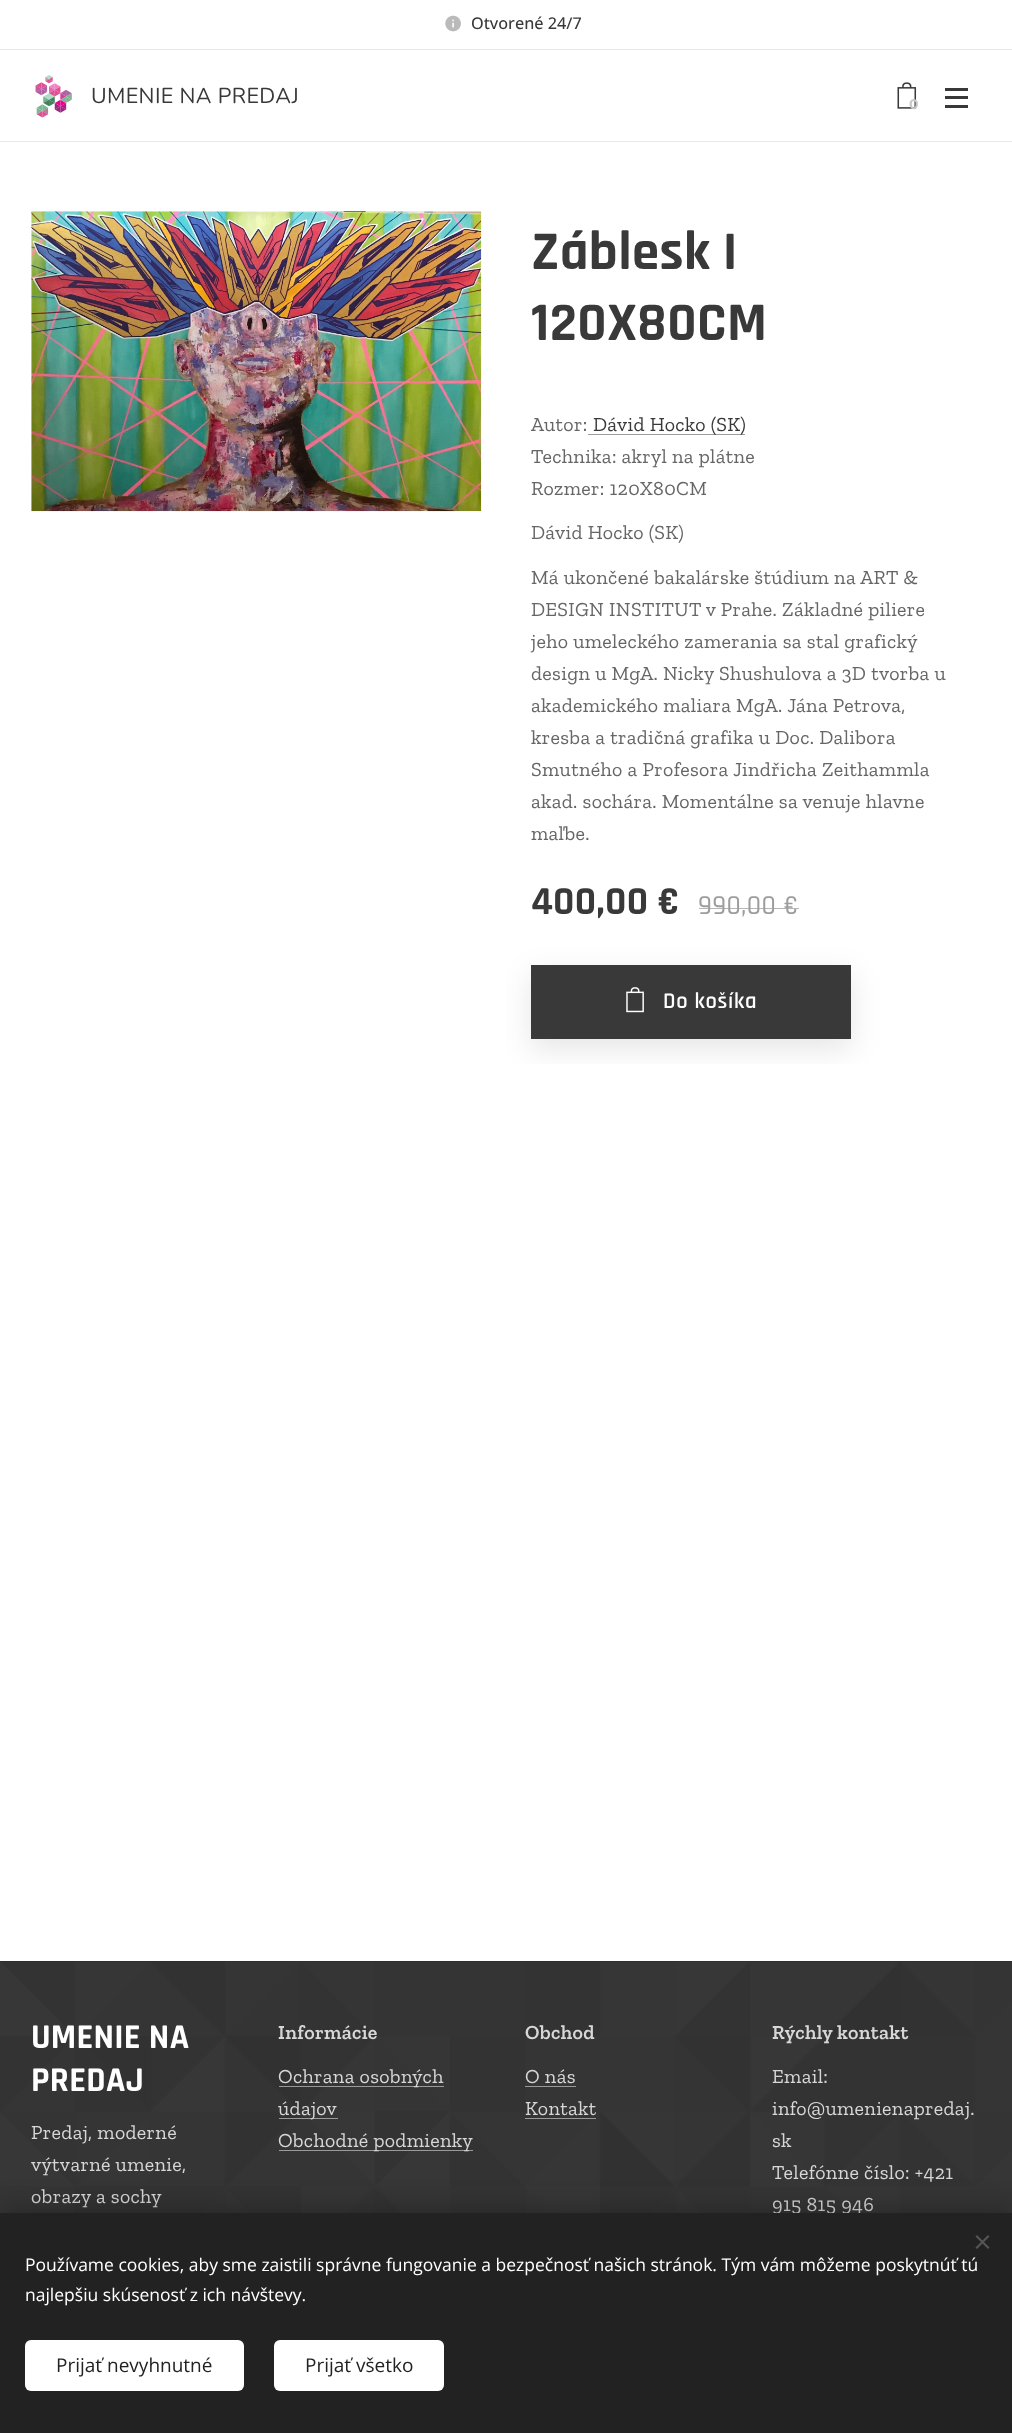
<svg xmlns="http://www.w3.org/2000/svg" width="1012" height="2433">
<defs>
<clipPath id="clip1"><rect x="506" y="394" width="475" height="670"/></clipPath>
</defs>
<rect width="100%" height="100%" fill="#fff"/>
<image x="445" y="15" width="16" height="17" href="media/1.png"/>
<text x="471" y="29" style="font-family:Open Sans;font-size:16.25px;font-weight:500;fill:#393939">Otvorené 24/7</text>
<rect y="49" width="1012" height="1" fill="#e8e8e8"/>
<image x="35" y="75" width="37" height="43" href="media/2.png"/>
<text x="91" y="103" style="font-family:Nunito;font-size:21.5px;letter-spacing:0.35px;fill:#393939">UMENIE NA PREDAJ</text>
<image x="897" y="82" width="20" height="27" href="media/3.png"/>
<text x="909" y="109" style="font-family:Montserrat;font-size:14px;font-weight:bold;fill:#c9c9c9">0</text>
<rect x="945" y="96" width="23" height="3" fill="#393939"/>
<rect x="945" y="88" width="23" height="3" fill="#393939"/>
<rect x="945" y="105" width="23" height="3" fill="#393939"/>
<rect y="141" width="1012" height="1" fill="#e8e8e8"/>
<image x="31" y="211" width="451" height="301" href="media/4.png"/>
<text x="531" y="269" style="font-family:Rajdhani;font-size:55px;font-weight:bold;letter-spacing:0.35px;fill:#393939">Záblesk I</text>
<text x="531" y="340" style="font-family:Rajdhani;font-size:55px;font-weight:bold;letter-spacing:0.35px;fill:#393939">120X80CM</text>
<text x="531" y="431" style="font-family:Zilla Slab;font-size:20px;letter-spacing:0.35px;fill:#666">Autor:</text>
<rect x="588" y="434" width="157" height="1" fill="#9c9c9c"/>
<text x="593" y="431" style="font-family:Zilla Slab;font-size:20px;letter-spacing:0.35px;fill:#393939">Dávid Hocko (SK)</text>
<text x="531" y="463" style="font-family:Zilla Slab;font-size:20px;letter-spacing:0.35px;fill:#666">Technika: akryl na plátne</text>
<text x="531" y="495" style="font-family:Zilla Slab;font-size:20px;letter-spacing:0.35px;fill:#666">Rozmer: 120X80CM</text>
<text x="531" y="539" style="font-family:Zilla Slab;font-size:20px;letter-spacing:0.35px;fill:#666">Dávid Hocko (SK)</text>
<text x="531" y="584" style="font-family:Zilla Slab;font-size:20px;letter-spacing:0.35px;fill:#666">Má ukončené bakalárske štúdium na ART &amp;</text>
<text x="531" y="616" style="font-family:Zilla Slab;font-size:20px;letter-spacing:0.35px;fill:#666">DESIGN INSTITUT v Prahe. Základné piliere</text>
<text x="531" y="648" style="font-family:Zilla Slab;font-size:20px;letter-spacing:0.35px;fill:#666">jeho umeleckého zamerania sa stal grafický</text>
<text x="531" y="680" style="font-family:Zilla Slab;font-size:20px;letter-spacing:0.35px;fill:#666">design u MgA. Nicky Shushulova a 3D tvorba u</text>
<text x="531" y="712" style="font-family:Zilla Slab;font-size:20px;letter-spacing:0.35px;fill:#666">akademického maliara MgA. Jána Petrova,</text>
<text x="531" y="744" style="font-family:Zilla Slab;font-size:20px;letter-spacing:0.35px;fill:#666">kresba a tradičná grafika u Doc. Dalibora</text>
<text x="531" y="776" style="font-family:Zilla Slab;font-size:20px;letter-spacing:0.35px;fill:#666">Smutného a Profesora Jindřicha Zeithammla</text>
<text x="531" y="808" style="font-family:Zilla Slab;font-size:20px;letter-spacing:0.35px;fill:#666">akad. sochára. Momentálne sa venuje hlavne</text>
<text x="531" y="840" style="font-family:Zilla Slab;font-size:20px;letter-spacing:0.35px;fill:#666">maľbe.</text>
<text x="531" y="914" style="font-family:Rajdhani;font-size:40px;font-weight:bold;letter-spacing:0.35px;fill:#393939">400,00 €</text>
<text x="698" y="914" style="font-family:Rajdhani;font-size:27.5px;font-weight:500;letter-spacing:0.35px;fill:#9d9d9d">990,00 €</text>
<rect x="699" y="908" width="100" height="1" fill="#9d9d9dbf"/>
<g clip-path="url(#clip1)">
<rect x="531" y="975" width="320" height="74" fill="#0000001a" filter="blur(15.5px)"/>
</g>
<rect x="531" y="965" width="320" height="74" fill="#393939"/>
<image x="626" y="987" width="18" height="26" href="media/5.png"/>
<text x="663" y="1008" style="font-family:Rajdhani;font-size:22.5px;font-weight:600;letter-spacing:0.75px;fill:#fff">Do košíka</text>
<rect y="1961" width="1012" height="1" fill="#272727"/>
<image x="0" y="1961" width="1012" height="252" href="media/6.png"/>
<text x="31" y="2048" style="font-family:Rajdhani;font-size:35px;font-weight:bold;letter-spacing:0.25px;fill:#fff">UMENIE NA</text>
<text x="31" y="2091" style="font-family:Rajdhani;font-size:35px;font-weight:bold;letter-spacing:0.25px;fill:#fff">PREDAJ</text>
<text x="31" y="2139" style="font-family:Zilla Slab;font-size:20px;letter-spacing:0.35px;fill:#d7d7d7">Predaj, moderné</text>
<text x="31" y="2171" style="font-family:Zilla Slab;font-size:20px;letter-spacing:0.35px;fill:#d7d7d7">výtvarné umenie,</text>
<text x="31" y="2203" style="font-family:Zilla Slab;font-size:20px;letter-spacing:0.35px;fill:#d7d7d7">obrazy a sochy</text>
<text x="278" y="2039" style="font-family:Zilla Slab;font-size:20px;font-weight:600;letter-spacing:0.35px;fill:#d7d7d7">Informácie</text>
<rect x="279" y="2086" width="165" height="1" fill="#ffffff80"/>
<text x="278" y="2083" style="font-family:Zilla Slab;font-size:20px;letter-spacing:0.35px;fill:#d7d7d7">Ochrana osobných</text>
<rect x="279" y="2118" width="59" height="1" fill="#ffffff80"/>
<text x="278" y="2115" style="font-family:Zilla Slab;font-size:20px;letter-spacing:0.35px;fill:#d7d7d7">údajov</text>
<rect x="279" y="2150" width="194" height="1" fill="#ffffff80"/>
<text x="278" y="2147" style="font-family:Zilla Slab;font-size:20px;letter-spacing:0.35px;fill:#d7d7d7">Obchodné podmienky</text>
<text x="525" y="2039" style="font-family:Zilla Slab;font-size:20px;font-weight:600;letter-spacing:0.35px;fill:#d7d7d7">Obchod</text>
<text x="525" y="2083" style="font-family:Zilla Slab;font-size:20px;letter-spacing:0.35px;fill:#d7d7d7">O nás</text>
<rect x="525" y="2086" width="51" height="1" fill="#9a9a9a"/>
<text x="525" y="2115" style="font-family:Zilla Slab;font-size:20px;letter-spacing:0.35px;fill:#d7d7d7">Kontakt</text>
<rect x="525" y="2118" width="71" height="1" fill="#9a9a9a"/>
<text x="772" y="2039" style="font-family:Zilla Slab;font-size:20px;font-weight:600;letter-spacing:0.35px;fill:#d7d7d7">Rýchly kontakt</text>
<text x="772" y="2083" style="font-family:Zilla Slab;font-size:20px;letter-spacing:0.35px;fill:#d7d7d7">Email:</text>
<text x="772" y="2115" style="font-family:Zilla Slab;font-size:20px;letter-spacing:0.35px;fill:#d7d7d7">info@umenienapredaj.</text>
<text x="772" y="2147" style="font-family:Zilla Slab;font-size:20px;letter-spacing:0.35px;fill:#d7d7d7">sk</text>
<text x="772" y="2179" style="font-family:Zilla Slab;font-size:20px;letter-spacing:0.35px;fill:#d7d7d7">Telefónne číslo: +421</text>
<text x="772" y="2211" style="font-family:Zilla Slab;font-size:20px;letter-spacing:0.35px;fill:#d7d7d7">915 815 946</text>
<rect y="2213" width="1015" height="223" fill="#00000054" filter="blur(15.5px)"/>
<rect y="2213" width="1012" height="220" fill="#222"/>
<path d="M975.5 2247.5l12.5-12.5l1.5 1.5l-12.5 12.5z" fill="#555"/>
<path d="M977 2235l12.5 12.5l-1.5 1.5l-12.5-12.5z" fill="#555"/>
<text x="25" y="2271" style="font-family:Open Sans;font-size:17.5px;fill:#fff">Používame cookies, aby sme zaistili správne fungovanie a bezpečnosť našich stránok. Tým vám môžeme poskytnúť tú</text>
<text x="25" y="2301" style="font-family:Open Sans;font-size:17.5px;fill:#fff">najlepšiu skúsenosť z ich návštevy.</text>
<rect x="25" y="2340" width="219" height="51" rx="6" fill="#fff"/>
<text x="56" y="2372" style="font-family:Open Sans;font-size:19px;fill:#222">Prijať nevyhnutné</text>
<rect x="274" y="2340" width="170" height="51" rx="6" fill="#fff"/>
<text x="305" y="2372" style="font-family:Open Sans;font-size:19px;fill:#222">Prijať všetko</text>
</svg>
